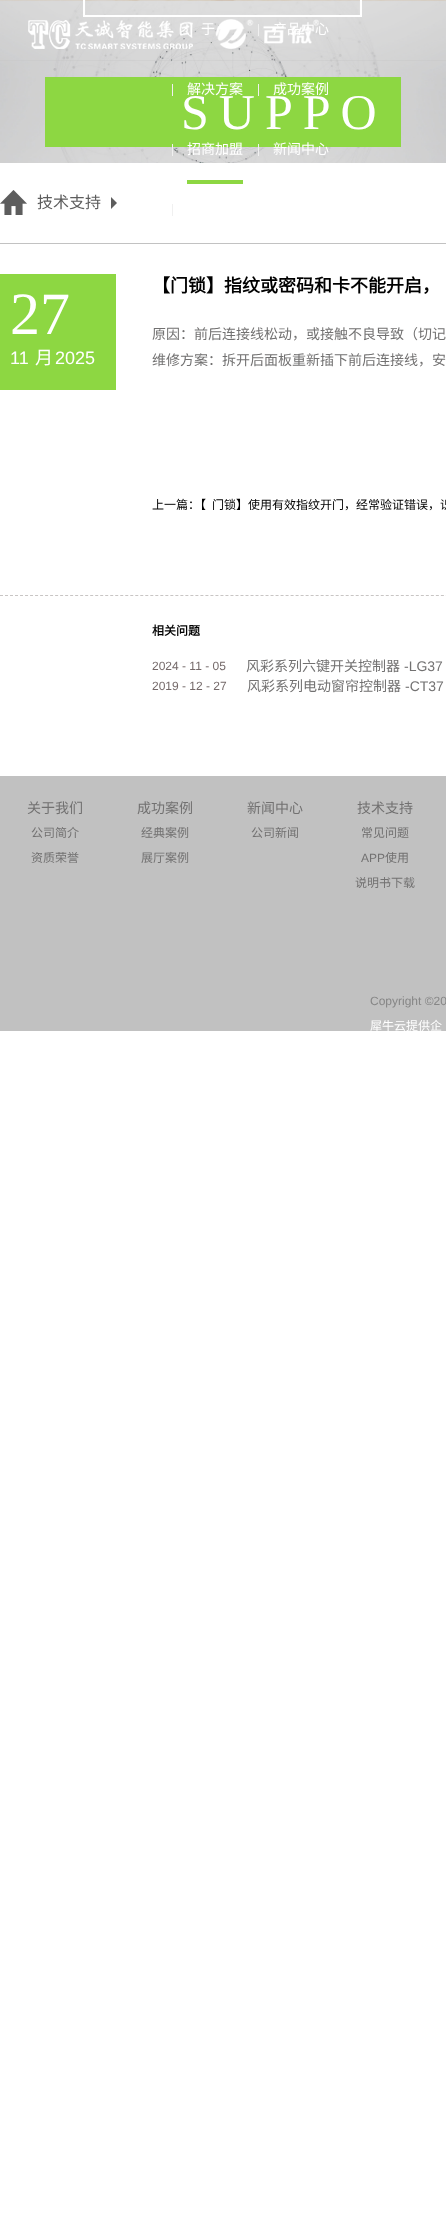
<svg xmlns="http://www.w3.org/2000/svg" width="446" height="2233">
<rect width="100%" height="100%" fill="#fff"/>
<image x="0" y="0" width="446" height="163" href="media/2.png"/>
<rect y="60" width="446" height="1" fill="#c2c2c24d"/>
<text x="201" y="34" style="font-family:Noto Sans CJK SC;font-size:14px;fill:#fff">于</text>
<rect x="258" y="24" width="1" height="12" fill="#f0f0f0"/>
<text x="273" y="34" style="font-family:Noto Sans CJK SC;font-size:14px;fill:#fff">产品中心</text>
<image x="28" y="19" width="291" height="30" href="media/1.png"/>
<rect x="45" y="77" width="356" height="70" fill="#8dd742"/>
<rect x="172" y="84" width="1" height="12" fill="#f0f0f0"/>
<text x="187" y="94" style="font-family:Noto Sans CJK SC;font-size:14px;fill:#fff">解决方案</text>
<text x="181" y="129" style="font-family:Liberation Serif;font-size:50px;letter-spacing:10px;fill:#fff">SUPPO</text>
<rect x="258" y="84" width="1" height="12" fill="#f0f0f0"/>
<text x="273" y="94" style="font-family:Noto Sans CJK SC;font-size:14px;fill:#fff">成功案例</text>
<rect x="172" y="144" width="1" height="12" fill="#f0f0f0"/>
<text x="187" y="154" style="font-family:Noto Sans CJK SC;font-size:14px;fill:#fff">招商加盟</text>
<rect x="258" y="144" width="1" height="12" fill="#f0f0f0"/>
<text x="273" y="154" style="font-family:Noto Sans CJK SC;font-size:14px;fill:#fff">新闻中心</text>
<rect x="187" y="180" width="56" height="4" fill="#8dd742"/>
<rect x="172" y="204" width="1" height="12" fill="#f0f0f0"/>
<image x="83" y="0" width="279" height="17" href="media/3.png"/>
<rect y="243" width="446" height="1" fill="#c2c2c2"/>
<image x="0" y="190" width="27" height="25" href="media/4.png"/>
<text x="37" y="208" style="font-family:Noto Sans CJK SC;font-size:16px;fill:#5d5d5d">技术支持</text>
<path d="M111 209v-12l6 6z" fill="#5d5d5d"/>
<text x="152" y="292" style="font-family:Noto Sans CJK SC;font-size:18px;font-weight:bold;fill:#000">【门锁】指纹或密码和卡不能开启，</text>
<rect y="274" width="116" height="116" fill="#8dd742"/>
<text x="10" y="334" style="font-family:Liberation Serif;font-size:60px;fill:#fff">27</text>
<text x="10" y="364" style="font-family:Liberation Sans;font-size:18px;fill:#fff">11</text>
<text x="35" y="364" style="font-family:Noto Sans CJK SC;font-size:18px;fill:#fff">月</text>
<text x="55" y="364" style="font-family:Liberation Sans;font-size:18px;fill:#fff">2025</text>
<text x="152" y="339" style="font-family:Noto Sans CJK SC;font-size:14px;fill:#727171">原因：前后连接线松动，或接触不良导致（切记</text>
<text x="152" y="365" style="font-family:Noto Sans CJK SC;font-size:14px;fill:#727171">维修方案：拆开后面板重新插下前后连接线，安</text>
<text x="152" y="509" style="font-family:Noto Sans CJK SC;font-size:12px;fill:#000">上一篇：【</text>
<text x="212" y="509" style="font-family:Noto Sans CJK SC;font-size:12px;fill:#000">门锁】使用有效指纹开门，经常验证错误，识</text>
<path d="M0 595.5h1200" fill="none" stroke="#c8c5c4" stroke-dasharray="3 2.01"/>
<text x="152" y="635" style="font-family:Noto Sans CJK SC;font-size:12px;font-weight:bold;fill:#000">相关问题</text>
<text x="152" y="670" style="font-family:Liberation Sans;font-size:12px;fill:#746969">2024 - 11 - 05</text>
<text x="246" y="671" style="font-family:Noto Sans CJK SC;font-size:14px;fill:#727171">风彩系列六键开关控制器</text>
<text x="404" y="671" style="font-family:Liberation Sans;font-size:14px;fill:#727171">-LG37</text>
<text x="152" y="690" style="font-family:Liberation Sans;font-size:12px;fill:#746969">2019 - 12 - 27</text>
<text x="247" y="691" style="font-family:Noto Sans CJK SC;font-size:14px;fill:#727171">风彩系列电动窗帘控制器</text>
<text x="405" y="691" style="font-family:Liberation Sans;font-size:14px;fill:#727171">-CT37</text>
<rect y="776" width="446" height="255" fill="#c1c1c1"/>
<text x="27" y="813" style="font-family:Noto Sans CJK SC;font-size:14px;fill:#727171">关于我们</text>
<text x="31" y="837" style="font-family:Noto Sans CJK SC;font-size:12px;fill:#727171">公司简介</text>
<text x="31" y="862" style="font-family:Noto Sans CJK SC;font-size:12px;fill:#727171">资质荣誉</text>
<text x="137" y="813" style="font-family:Noto Sans CJK SC;font-size:14px;fill:#727171">成功案例</text>
<text x="141" y="837" style="font-family:Noto Sans CJK SC;font-size:12px;fill:#727171">经典案例</text>
<text x="141" y="862" style="font-family:Noto Sans CJK SC;font-size:12px;fill:#727171">展厅案例</text>
<text x="247" y="813" style="font-family:Noto Sans CJK SC;font-size:14px;fill:#727171">新闻中心</text>
<text x="251" y="837" style="font-family:Noto Sans CJK SC;font-size:12px;fill:#727171">公司新闻</text>
<text x="357" y="813" style="font-family:Noto Sans CJK SC;font-size:14px;fill:#727171">技术支持</text>
<text x="361" y="837" style="font-family:Noto Sans CJK SC;font-size:12px;fill:#727171">常见问题</text>
<text x="361" y="862" style="font-family:Liberation Sans;font-size:12px;fill:#727171">APP</text>
<text x="385" y="862" style="font-family:Noto Sans CJK SC;font-size:12px;fill:#727171">使用</text>
<text x="355" y="887" style="font-family:Noto Sans CJK SC;font-size:12px;fill:#727171">说明书下载</text>
<text x="370" y="1005" style="font-family:Liberation Sans;font-size:12px;fill:#868686">Copyright ©20</text>
<text x="370" y="1030" style="font-family:Noto Sans CJK SC;font-size:12px;fill:#fff">犀牛云提供企</text>
</svg>
